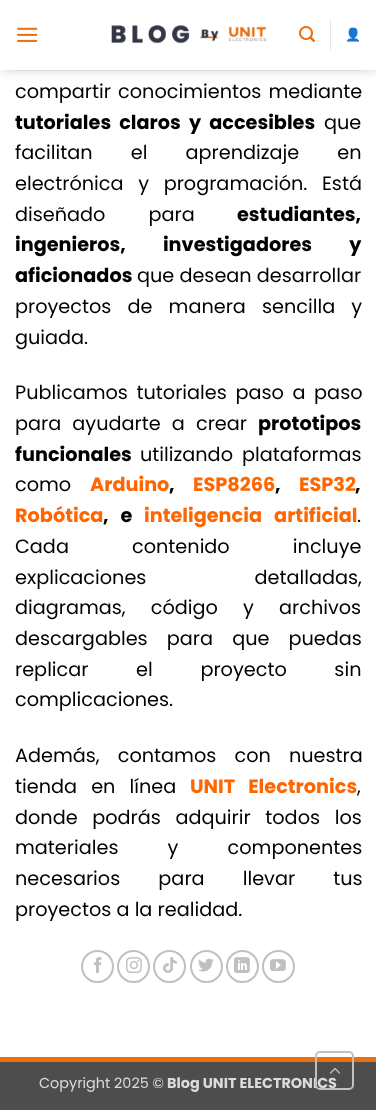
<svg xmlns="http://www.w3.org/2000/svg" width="376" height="1110">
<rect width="100%" height="100%" fill="#eb6f0f"/>
<rect y="70" width="376" height="987" fill="#fff"/>
<rect x="1" y="1" width="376" height="70" fill="#00000026" filter="blur(5px)"/>
<rect width="376" height="70" fill="#fff"/>
<image x="17" y="27" width="21" height="15" href="media/1.png"/>
<image x="111" y="25" width="156" height="19" href="media/2.png"/>
<image x="299" y="26" width="16" height="16" href="media/3.png"/>
<rect x="330" y="20" width="1" height="30" fill="#e6e6e6"/>
<text x="345" y="39" style="font-family:Noto Color Emoji;font-size:13px;font-weight:bold;fill:#656565">👤</text>
<rect x="15" y="70" width="346" height="1" fill="#4a4a4a1a"/>
<text x="15" y="98" word-spacing="2" style="font-family:Poppins;font-size:19.25px;fill:#000">compartir conocimientos mediante</text>
<text x="15" y="129" word-spacing="4" style="font-family:Poppins;font-size:19.25px;font-weight:bold;fill:#000">tutoriales claros y accesibles</text>
<text x="324" y="129" style="font-family:Poppins;font-size:19.25px;fill:#000">que</text>
<text x="15" y="159" word-spacing="33" style="font-family:Poppins;font-size:19.25px;fill:#000">facilitan el aprendizaje en</text>
<text x="15" y="190" word-spacing="9.5" style="font-family:Poppins;font-size:19.25px;fill:#000">electrónica y programación. Está</text>
<text x="15" y="221" word-spacing="38" style="font-family:Poppins;font-size:19.25px;fill:#000">diseñado para</text>
<text x="237" y="221" style="font-family:Poppins;font-size:19.25px;font-weight:bold;fill:#000">estudiantes,</text>
<text x="15" y="251" word-spacing="33" style="font-family:Poppins;font-size:19.25px;font-weight:bold;fill:#000">ingenieros, investigadores y</text>
<text x="15" y="282" style="font-family:Poppins;font-size:19.25px;font-weight:bold;fill:#000">aficionados</text>
<text x="137" y="282" style="font-family:Poppins;font-size:19.25px;fill:#000">que desean desarrollar</text>
<text x="15" y="313" word-spacing="11" style="font-family:Poppins;font-size:19.25px;fill:#000">proyectos de manera sencilla y</text>
<text x="15" y="344" style="font-family:Poppins;font-size:19.25px;fill:#000">guiada.</text>
<text x="15" y="399" word-spacing="3.5" style="font-family:Poppins;font-size:19.25px;fill:#000">Publicamos tutoriales paso a paso</text>
<text x="15" y="430" word-spacing="6" style="font-family:Poppins;font-size:19.25px;fill:#000">para ayudarte a crear</text>
<text x="258" y="430" style="font-family:Poppins;font-size:19.25px;font-weight:bold;fill:#000">prototipos</text>
<text x="15" y="461" style="font-family:Poppins;font-size:19.25px;font-weight:bold;fill:#000">funcionales</text>
<text x="140" y="461" word-spacing="4" style="font-family:Poppins;font-size:19.25px;fill:#000">utilizando plataformas</text>
<text x="15" y="491" style="font-family:Poppins;font-size:19.25px;fill:#000">como</text>
<text x="90" y="491" style="font-family:Poppins;font-size:19.25px;font-weight:bold;fill:#f60">Arduino</text>
<text x="169" y="491" style="font-family:Poppins;font-size:19.25px;font-weight:bold;fill:#000">,</text>
<text x="193" y="491" style="font-family:Poppins;font-size:19.25px;font-weight:bold;fill:#f60">ESP8266</text>
<text x="275" y="491" style="font-family:Poppins;font-size:19.25px;font-weight:bold;fill:#000">,</text>
<text x="299" y="491" style="font-family:Poppins;font-size:19.25px;font-weight:bold;fill:#f60">ESP32</text>
<text x="355" y="491" style="font-family:Poppins;font-size:19.25px;font-weight:bold;fill:#000">,</text>
<text x="15" y="522" style="font-family:Poppins;font-size:19.25px;font-weight:bold;fill:#f60">Robótica</text>
<text x="103" y="522" word-spacing="8" style="font-family:Poppins;font-size:19.25px;font-weight:bold;fill:#000">, e</text>
<text x="144" y="522" word-spacing="8" style="font-family:Poppins;font-size:19.25px;font-weight:bold;fill:#f60">inteligencia artificial</text>
<text x="357" y="522" style="font-family:Poppins;font-size:19.25px;fill:#000">.</text>
<text x="15" y="553" word-spacing="58" style="font-family:Poppins;font-size:19.25px;fill:#000">Cada contenido incluye</text>
<text x="15" y="584" word-spacing="103" style="font-family:Poppins;font-size:19.25px;fill:#000">explicaciones detalladas,</text>
<text x="15" y="614" word-spacing="20" style="font-family:Poppins;font-size:19.25px;fill:#000">diagramas, código y archivos</text>
<text x="15" y="645" word-spacing="14" style="font-family:Poppins;font-size:19.25px;fill:#000">descargables para que puedas</text>
<text x="15" y="676" word-spacing="42.5" style="font-family:Poppins;font-size:19.25px;fill:#000">replicar el proyecto sin</text>
<text x="15" y="706" style="font-family:Poppins;font-size:19.25px;fill:#000">complicaciones.</text>
<text x="15" y="762" word-spacing="13" style="font-family:Poppins;font-size:19.25px;fill:#000">Además, contamos con nuestra</text>
<text x="15" y="793" word-spacing="9" style="font-family:Poppins;font-size:19.25px;fill:#000">tienda en línea</text>
<text x="190" y="793" word-spacing="9" style="font-family:Poppins;font-size:19.25px;font-weight:bold;fill:#f60">UNIT Electronics</text>
<text x="357" y="793" style="font-family:Poppins;font-size:19.25px;fill:#000">,</text>
<text x="15" y="824" word-spacing="9.5" style="font-family:Poppins;font-size:19.25px;fill:#000">donde podrás adquirir todos los</text>
<text x="15" y="854" word-spacing="44" style="font-family:Poppins;font-size:19.25px;fill:#000">materiales y componentes</text>
<text x="15" y="885" word-spacing="33" style="font-family:Poppins;font-size:19.25px;fill:#000">necesarios para llevar tus</text>
<text x="15" y="916" style="font-family:Poppins;font-size:19.25px;fill:#000">proyectos a la realidad.</text>
<circle cx="97.5" cy="966.5" r="15.5" fill="none" stroke="#c0c0c0" stroke-width="2"/>
<image x="94" y="957" width="8" height="16" href="media/4.png"/>
<circle cx="133.5" cy="966.5" r="15.5" fill="none" stroke="#c0c0c0" stroke-width="2"/>
<image x="126" y="957" width="16" height="16" href="media/5.png"/>
<circle cx="169.5" cy="966.5" r="15.5" fill="none" stroke="#c0c0c0" stroke-width="2"/>
<image x="163" y="957" width="14" height="16" href="media/6.png"/>
<circle cx="206.5" cy="966.5" r="15.5" fill="none" stroke="#c0c0c0" stroke-width="2"/>
<image x="198" y="958" width="16" height="14" href="media/7.png"/>
<circle cx="242.5" cy="966.5" r="15.5" fill="none" stroke="#c0c0c0" stroke-width="2"/>
<image x="234" y="957" width="16" height="16" href="media/8.png"/>
<circle cx="278.5" cy="966.5" r="15.5" fill="none" stroke="#c0c0c0" stroke-width="2"/>
<image x="270" y="959" width="16" height="12" href="media/9.png"/>
<rect y="1062" width="376" height="48" fill="#4d4d4d"/>
<text x="167" y="1088" style="font-family:Poppins;font-size:14.4px;font-weight:bold;fill:#dbdbdb">Blog UNIT ELECTRONICS</text>
<rect x="316" y="1052" width="37" height="37" rx="4" fill="none" stroke="#c0c0c0" stroke-width="2"/>
<image x="329" y="1067" width="12" height="7" href="media/10.png"/>
<text x="39" y="1088" style="font-family:Poppins;font-size:14.4px;fill:#dbdbdb">Copyright 2025 ©</text>
</svg>
